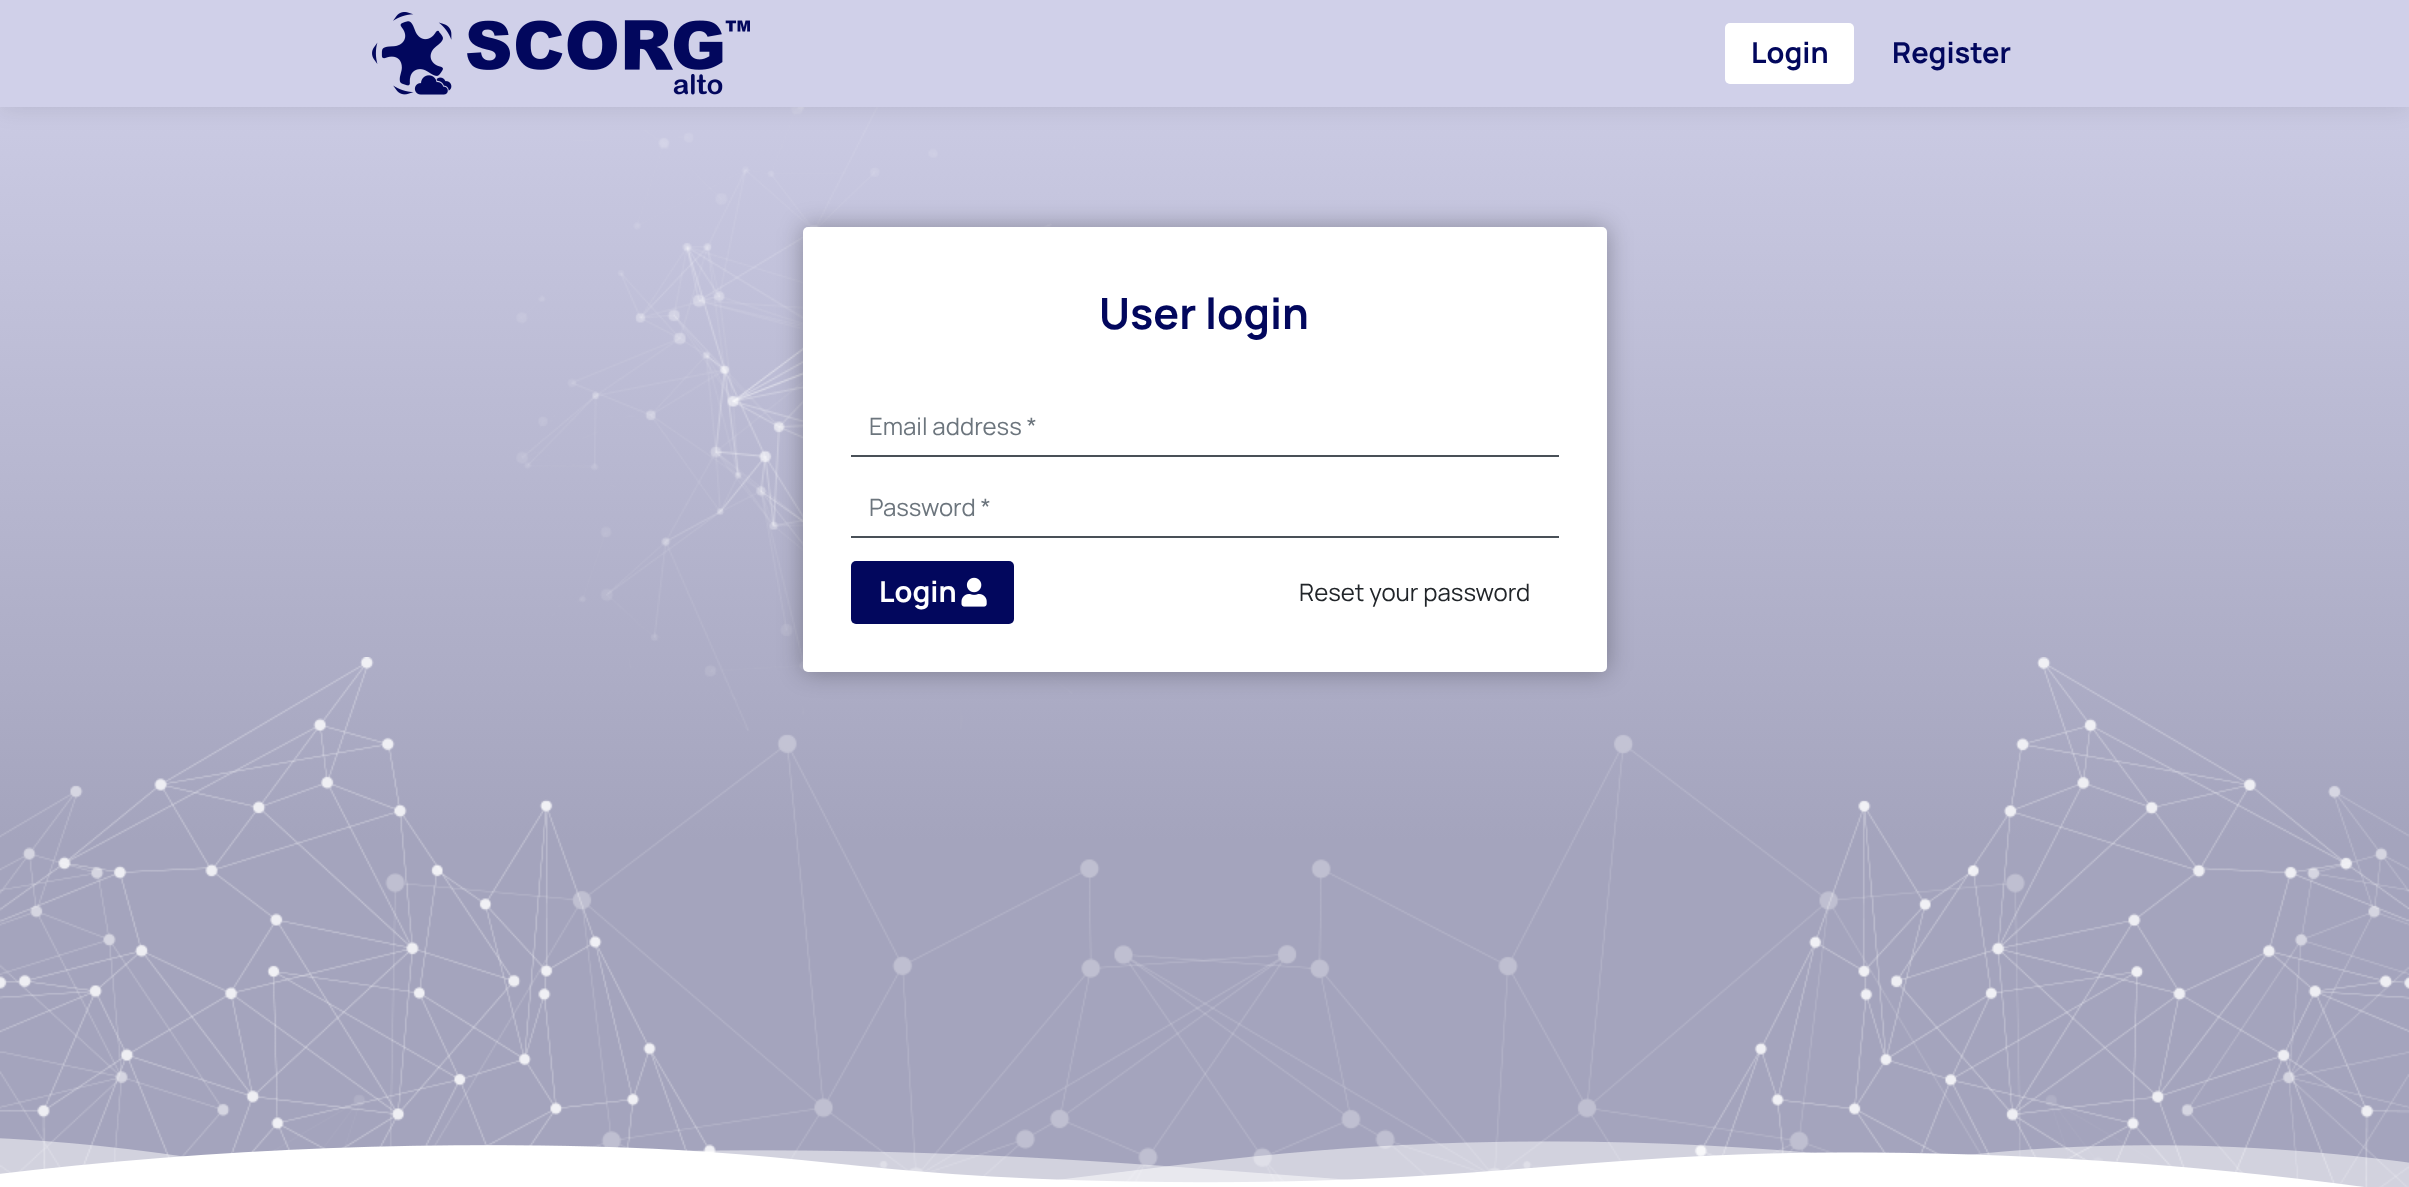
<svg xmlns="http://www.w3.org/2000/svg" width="2409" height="1187">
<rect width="100%" height="100%" fill="#fff"/>
<image x="0" y="107" width="2409" height="1080" href="media/2.png"/>
<image x="516" y="107" width="559" height="624" href="media/3.png"/>
<rect width="2409" height="107" fill="#0000001a" filter="blur(12px)"/>
<rect width="2409" height="107" fill="#d0d0e9"/>
<image x="372" y="12" width="378" height="83" href="media/1.png"/>
<rect x="1725" y="23" width="129" height="61" rx="5" fill="#fff"/>
<text x="1751" y="63" style="font-family:Manrope;font-size:29px;font-weight:bold;fill:#02075d">Login</text>
<text x="1892" y="63" style="font-family:Manrope;font-size:29px;font-weight:bold;fill:#02075d">Register</text>
<rect x="803" y="227" width="804" height="445" rx="5" fill="#0000004d" filter="blur(12px)"/>
<rect x="803" y="227" width="804" height="445" rx="5" fill="#fff"/>
<text x="1099" y="329" style="font-family:Manrope;font-size:43px;font-weight:bold;fill:#02075d">User login</text>
<rect x="851" y="455" width="708" height="2" fill="#495057"/>
<text x="869" y="435" style="font-family:Manrope;font-size:24px;fill:#6c757d">Email address *</text>
<rect x="851" y="536" width="708" height="2" fill="#495057"/>
<text x="869" y="516" style="font-family:Manrope;font-size:24px;fill:#6c757d">Password *</text>
<rect x="851" y="561" width="163" height="63" rx="5" fill="#02075d"/>
<text x="879" y="602" style="font-family:Manrope;font-size:29px;font-weight:bold;fill:#fff">Login</text>
<image x="961" y="577" width="26" height="30" href="media/4.png"/>
<text x="1299" y="601" style="font-family:Manrope;font-size:24px;fill:#212529">Reset your password</text>
<image x="0" y="1138" width="2409" height="49" href="media/5.png"/>
</svg>
